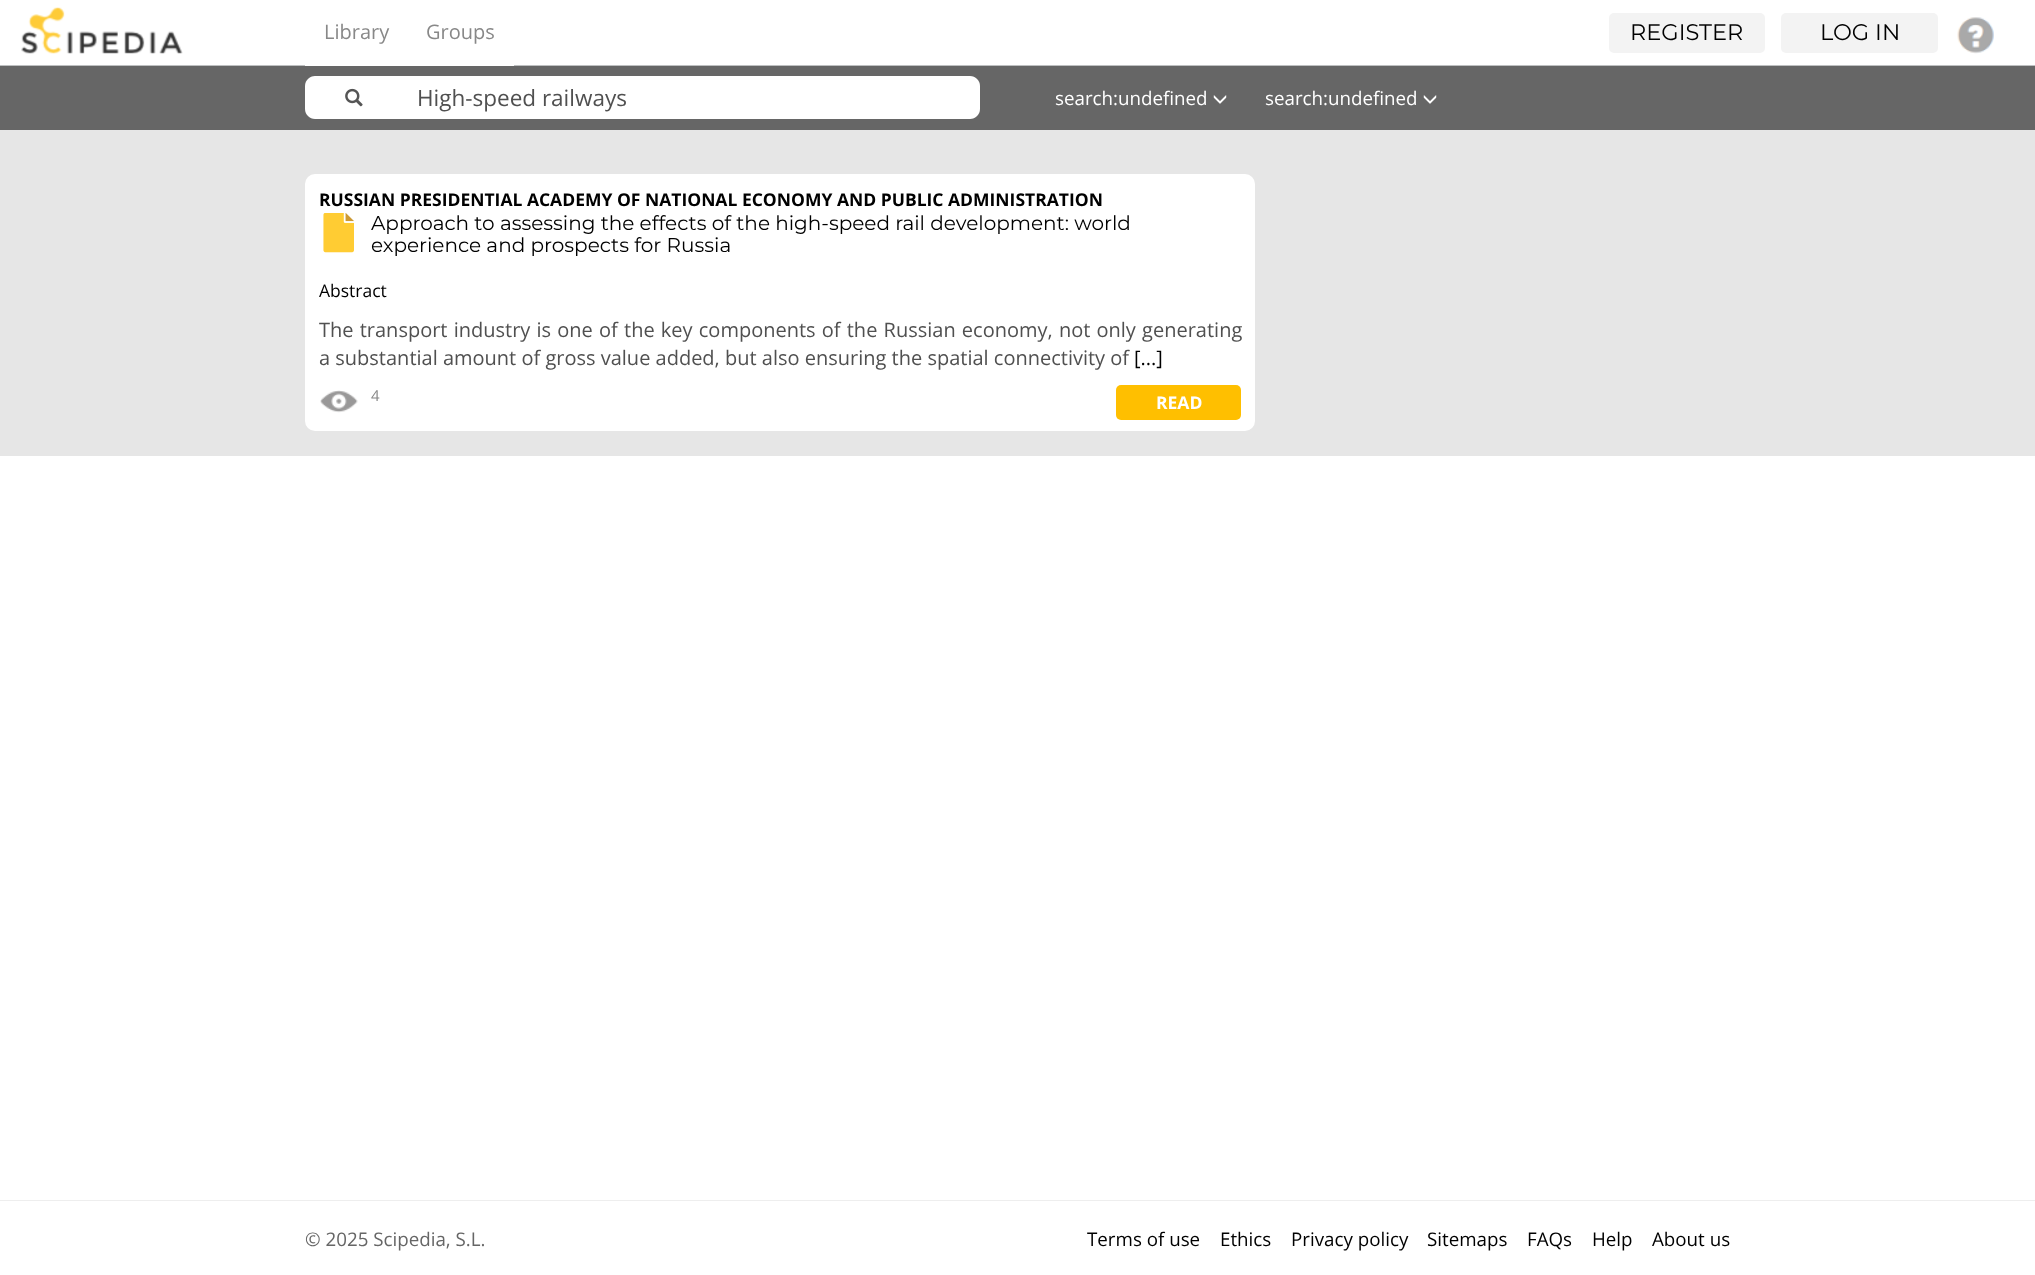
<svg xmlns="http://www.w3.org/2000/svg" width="2035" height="1275">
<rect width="100%" height="100%" fill="#fff"/>
<rect y="65" width="2035" height="1" fill="#bec0c1"/>
<image x="21" y="7" width="162" height="47" href="media/1.png"/>
<rect x="305" y="65" width="209" height="1" fill="#fff"/>
<text x="324" y="39" style="font-family:Open Sans;font-size:20px;fill:#888">Library</text>
<text x="426" y="39" style="font-family:Open Sans;font-size:20px;fill:#888">Groups</text>
<rect x="1609" y="13" width="156" height="40" rx="5" fill="#f3f3f3"/>
<text x="1630" y="40" style="font-family:Montserrat;font-size:22.5px;fill:#000">REGISTER</text>
<rect x="1781" y="13" width="157" height="40" rx="5" fill="#f3f3f3"/>
<text x="1820" y="40" style="font-family:Montserrat;font-size:22.5px;fill:#000">LOG IN</text>
<image x="1957" y="17" width="37" height="37" href="media/2.png"/>
<rect y="66" width="2035" height="64" fill="#666"/>
<path d="M315 76h88v43h-88c-5.5 0-10-4.5-10-10v-23c0-5.5 4.5-10 10-10z" fill="#fff"/>
<image x="345" y="88" width="18" height="19" href="media/3.png"/>
<path d="M403 76h567c5.5 0 10 4.5 10 10v23c0 5.5-4.5 10-10 10h-567z" fill="#fff"/>
<text x="417" y="106" style="font-family:Open Sans;font-size:22.5px;fill:#505050">High-speed railways</text>
<text x="1055" y="105" style="font-family:Open Sans;font-size:18.75px;fill:#fff">search:undefined</text>
<image x="1213" y="95" width="14" height="9" href="media/4.png"/>
<text x="1265" y="105" style="font-family:Open Sans;font-size:18.75px;fill:#fff">search:undefined</text>
<image x="1423" y="95" width="14" height="9" href="media/4.png"/>
<rect y="130" width="2035" height="326" fill="#e6e6e6"/>
<rect x="305" y="174" width="950" height="257" rx="10" fill="#fff"/>
<text x="319" y="206" style="font-family:Open Sans;font-size:17.5px;font-weight:bold;fill:#000">RUSSIAN PRESIDENTIAL ACADEMY OF NATIONAL ECONOMY AND PUBLIC ADMINISTRATION</text>
<image x="323" y="213" width="31" height="40" href="media/5.png"/>
<text x="371" y="230" style="font-family:Montserrat;font-size:20px;fill:#000">Approach to assessing the effects of the high-speed rail development: world</text>
<text x="371" y="252" style="font-family:Montserrat;font-size:20px;fill:#000">experience and prospects for Russia</text>
<text x="319" y="297" style="font-family:Open Sans;font-size:17.5px;fill:#000">Abstract</text>
<text x="319" y="337" word-spacing="1" style="font-family:Open Sans;font-size:20px;fill:#505050">The transport industry is one of the key components of the Russian economy, not only generating</text>
<text x="319" y="365" style="font-family:Open Sans;font-size:20px;fill:#505050">a substantial amount of gross value added, but also ensuring the spatial connectivity of</text>
<text x="1134" y="365" style="font-family:Open Sans;font-size:20px;fill:#000">[...]</text>
<image x="320" y="390" width="38" height="23" href="media/6.png"/>
<text x="371" y="401" style="font-family:Open Sans;font-size:15px;fill:#888">4</text>
<rect x="1116" y="385" width="125" height="35" rx="5" fill="#ffbf00"/>
<text x="1156" y="409" style="font-family:Open Sans;font-size:17.5px;font-weight:bold;fill:#fff">READ</text>
<rect y="1200" width="2035" height="1" fill="#eee"/>
<text x="305" y="1246" style="font-family:Open Sans;font-size:18.75px;fill:#666">© 2025 Scipedia, S.L.</text>
<text x="1087" y="1246" style="font-family:Open Sans;font-size:18.75px;fill:#000">Terms of use</text>
<text x="1220" y="1246" style="font-family:Open Sans;font-size:18.75px;fill:#000">Ethics</text>
<text x="1291" y="1246" style="font-family:Open Sans;font-size:18.75px;fill:#000">Privacy policy</text>
<text x="1427" y="1246" style="font-family:Open Sans;font-size:18.75px;fill:#000">Sitemaps</text>
<text x="1527" y="1246" style="font-family:Open Sans;font-size:18.75px;fill:#000">FAQs</text>
<text x="1592" y="1246" style="font-family:Open Sans;font-size:18.75px;fill:#000">Help</text>
<text x="1652" y="1246" style="font-family:Open Sans;font-size:18.75px;fill:#000">About us</text>
</svg>
